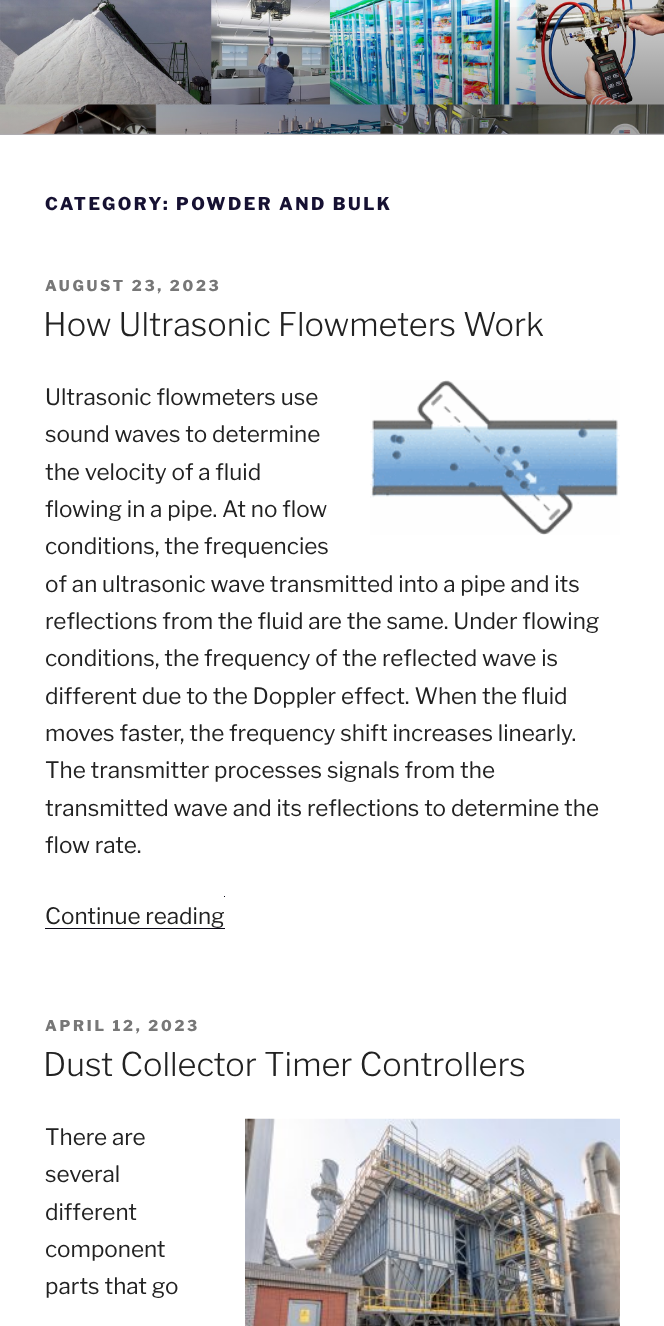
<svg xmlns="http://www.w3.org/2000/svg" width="664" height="1326">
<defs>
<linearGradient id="g1" gradientUnits="userSpaceOnUse" x1="333" y1="0" x2="333" y2="135"><stop offset="0" stop-color="#000" stop-opacity="0"/><stop offset="0.75" stop-color="#000" stop-opacity="0.3"/><stop offset="1" stop-color="#000" stop-opacity="0.3"/></linearGradient>
</defs>
<rect width="100%" height="100%" fill="#fff"/>
<rect y="133" width="664" height="2" fill="#f8f7fc"/>
<image x="0" y="0" width="664" height="134" href="media/1.png"/>
<rect y="7" width="664" height="128" fill="url(#g1)"/>
<text x="45" y="210" style="font-family:Libre Franklin;font-size:17.5px;font-weight:800;letter-spacing:2.45px;fill:#161132">CATEGORY: POWDER AND BULK</text>
<text x="45" y="291" style="font-family:Libre Franklin;font-size:15px;font-weight:800;letter-spacing:2.75px;fill:#777">AUGUST 23, 2023</text>
<text x="43" y="336" style="font-family:Libre Franklin;font-size:32.5px;font-weight:300;fill:#222">How Ultrasonic Flowmeters Work</text>
<text x="45" y="405" style="font-family:Libre Franklin;font-size:22.5px;fill:#222">Ultrasonic flowmeters use</text>
<image x="370" y="380" width="250" height="155" href="media/2.png"/>
<text x="45" y="442" style="font-family:Libre Franklin;font-size:22.5px;fill:#222">sound waves to determine</text>
<text x="45" y="480" style="font-family:Libre Franklin;font-size:22.5px;fill:#222">the velocity of a fluid</text>
<text x="45" y="517" style="font-family:Libre Franklin;font-size:22.5px;fill:#222">flowing in a pipe. At no flow</text>
<text x="45" y="554" style="font-family:Libre Franklin;font-size:22.5px;fill:#222">conditions, the frequencies</text>
<text x="45" y="592" style="font-family:Libre Franklin;font-size:22.5px;fill:#222">of an ultrasonic wave transmitted into a pipe and its</text>
<text x="45" y="629" style="font-family:Libre Franklin;font-size:22.5px;fill:#222">reflections from the fluid are the same. Under flowing</text>
<text x="45" y="666" style="font-family:Libre Franklin;font-size:22.5px;fill:#222">conditions, the frequency of the reflected wave is</text>
<text x="45" y="704" style="font-family:Libre Franklin;font-size:22.5px;fill:#222">different due to the Doppler effect. When the fluid</text>
<text x="45" y="741" style="font-family:Libre Franklin;font-size:22.5px;fill:#222">moves faster, the frequency shift increases linearly.</text>
<text x="45" y="778" style="font-family:Libre Franklin;font-size:22.5px;fill:#222">The transmitter processes signals from the</text>
<text x="45" y="816" style="font-family:Libre Franklin;font-size:22.5px;fill:#222">transmitted wave and its reflections to determine the</text>
<text x="45" y="853" style="font-family:Libre Franklin;font-size:22.5px;fill:#222">flow rate.</text>
<text x="45" y="924" style="font-family:Libre Franklin;font-size:22.5px;fill:#222">Continue reading</text>
<rect x="45" y="928" width="180" height="1" fill="#0a0817"/>
<rect x="224" y="896" width="1" height="1" fill="#0a0817"/>
<text x="45" y="1031" style="font-family:Libre Franklin;font-size:15px;font-weight:800;letter-spacing:2.75px;fill:#777">APRIL 12, 2023</text>
<text x="43" y="1076" style="font-family:Libre Franklin;font-size:32.5px;font-weight:300;fill:#222">Dust Collector Timer Controllers</text>
<text x="45" y="1145" style="font-family:Libre Franklin;font-size:22.5px;fill:#222">There are</text>
<image x="245" y="1118" width="375" height="208" href="media/3.png"/>
<text x="45" y="1182" style="font-family:Libre Franklin;font-size:22.5px;fill:#222">several</text>
<text x="45" y="1220" style="font-family:Libre Franklin;font-size:22.5px;fill:#222">different</text>
<text x="45" y="1257" style="font-family:Libre Franklin;font-size:22.5px;fill:#222">component</text>
<text x="45" y="1294" style="font-family:Libre Franklin;font-size:22.5px;fill:#222">parts that go</text>
</svg>
